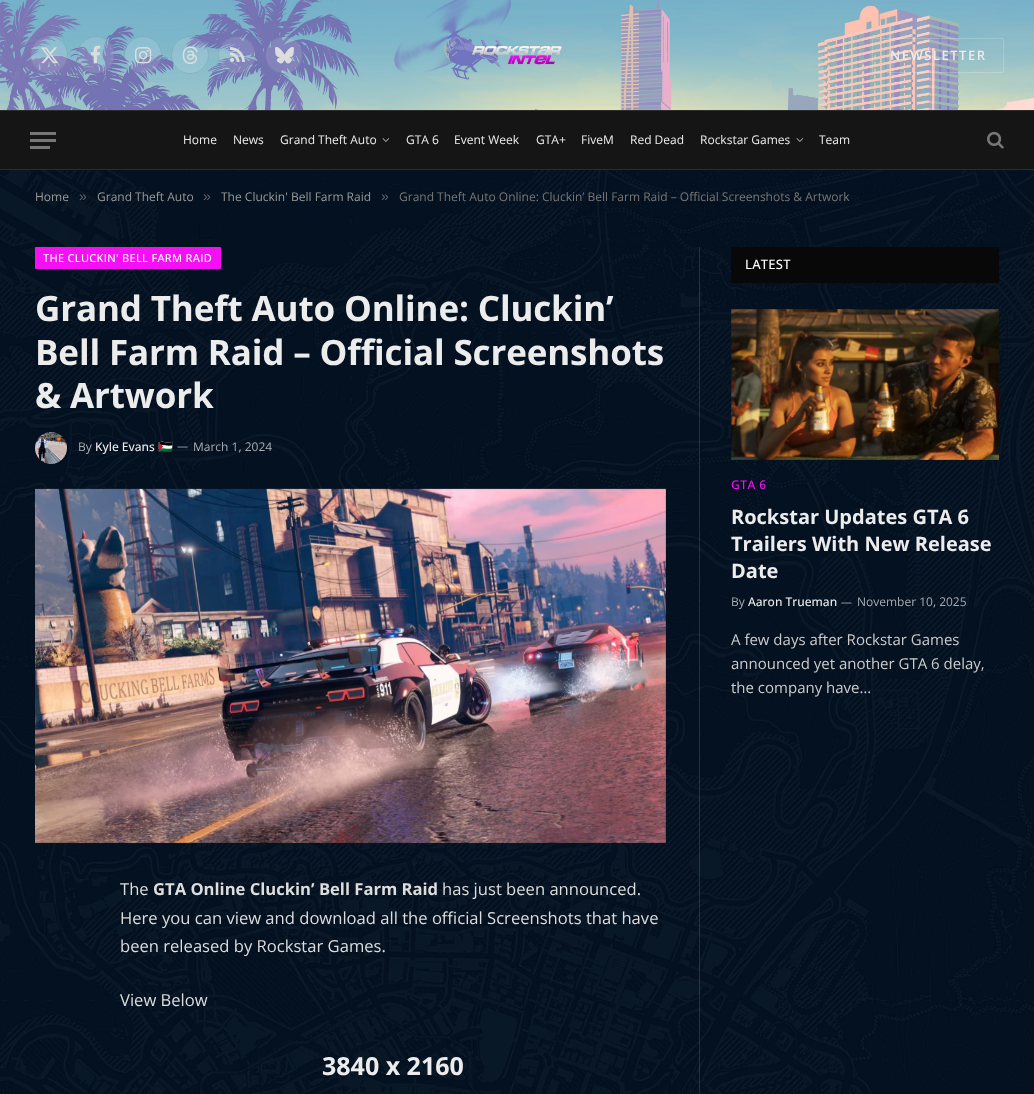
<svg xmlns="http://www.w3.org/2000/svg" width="1034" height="1094">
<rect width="100%" height="100%" fill="#fff"/>
<image x="0" y="170" width="1034" height="924" href="media/1.png"/>
<image x="0" y="0" width="1034" height="110" href="media/2.png"/>
<circle cx="49" cy="55" r="19" fill="#ffffff1f"/>
<circle cx="49" cy="55" r="18.5" fill="none" stroke="#00000017"/>
<image x="41" y="47" width="17" height="17" href="media/3.png"/>
<circle cx="96" cy="55" r="19" fill="#ffffff1f"/>
<circle cx="96" cy="55" r="18.5" fill="none" stroke="#00000017"/>
<image x="91" y="45" width="10" height="19" href="media/4.png"/>
<circle cx="143" cy="55" r="19" fill="#ffffff1f"/>
<circle cx="143" cy="55" r="18.5" fill="none" stroke="#00000017"/>
<image x="135" y="47" width="17" height="17" href="media/5.png"/>
<circle cx="190" cy="55" r="19" fill="#ffffff1f"/>
<circle cx="190" cy="55" r="18.5" fill="none" stroke="#00000017"/>
<image x="182" y="46" width="16" height="18" href="media/6.png"/>
<circle cx="237" cy="55" r="19" fill="#ffffff1f"/>
<circle cx="237" cy="55" r="18.5" fill="none" stroke="#00000017"/>
<image x="230" y="47" width="15" height="15" href="media/7.png"/>
<circle cx="284" cy="55" r="19" fill="#ffffff1f"/>
<circle cx="284" cy="55" r="18.5" fill="none" stroke="#00000017"/>
<image x="275" y="46" width="19" height="18" href="media/8.png"/>
<image x="472" y="45" width="90" height="20" href="media/9.png"/>
<rect x="872.5" y="38.5" width="131" height="34" rx="1.5" fill="none" stroke="#ffffff33"/>
<text x="890" y="60" style="font-family:Open Sans;font-size:13px;font-weight:600;letter-spacing:1.5px;fill:#ececec">NEWSLETTER</text>
<rect y="111" width="1034" height="58" fill="#151515"/>
<rect y="110" width="1034" height="1" fill="#2c2c2c"/>
<rect y="169" width="1034" height="1" fill="#2c2c2c"/>
<rect x="30" y="146" width="20" height="3" fill="#777"/>
<rect x="30" y="132" width="26" height="3" fill="#777"/>
<rect x="30" y="139" width="26" height="3" fill="#777"/>
<text x="183" y="144" style="font-family:Open Sans;font-size:12px;fill:#ececec">Home</text>
<text x="233" y="144" style="font-family:Open Sans;font-size:12px;fill:#ececec">News</text>
<text x="280" y="144" style="font-family:Open Sans;font-size:12px;fill:#ececec">Grand Theft Auto</text>
<image x="382" y="138" width="8" height="4" href="media/10.png"/>
<text x="406" y="144" style="font-family:Open Sans;font-size:12px;fill:#ececec">GTA 6</text>
<text x="454" y="144" style="font-family:Open Sans;font-size:12px;fill:#ececec">Event Week</text>
<text x="536" y="144" style="font-family:Open Sans;font-size:12px;fill:#ececec">GTA+</text>
<text x="581" y="144" style="font-family:Open Sans;font-size:12px;fill:#ececec">FiveM</text>
<text x="630" y="144" style="font-family:Open Sans;font-size:12px;fill:#ececec">Red Dead</text>
<text x="700" y="144" style="font-family:Open Sans;font-size:12px;fill:#ececec">Rockstar Games</text>
<image x="796" y="138" width="8" height="4" href="media/10.png"/>
<text x="819" y="144" style="font-family:Open Sans;font-size:12px;fill:#ececec">Team</text>
<image x="987" y="131" width="17" height="18" href="media/11.png"/>
<text x="35" y="201" style="font-family:Open Sans;font-size:12px;fill:#999">Home</text>
<text x="79" y="201" style="font-family:Liberation Sans;font-size:14px;fill:#606366">»</text>
<text x="97" y="201" style="font-family:Open Sans;font-size:12px;fill:#999">Grand Theft Auto</text>
<text x="203" y="201" style="font-family:Liberation Sans;font-size:14px;fill:#606366">»</text>
<text x="221" y="201" style="font-family:Open Sans;font-size:12px;fill:#999">The Cluckin' Bell Farm Raid</text>
<text x="381" y="201" style="font-family:Liberation Sans;font-size:14px;fill:#606366">»</text>
<text x="399" y="201" style="font-family:Open Sans;font-size:12px;fill:#777">Grand Theft Auto Online: Cluckin’ Bell Farm Raid – Official Screenshots &amp; Artwork</text>
<rect x="35" y="247" width="186" height="22" rx="1" fill="#f40ff5"/>
<text x="43" y="262" style="font-family:Open Sans;font-size:11px;font-weight:500;letter-spacing:0.3px;fill:#fff">THE CLUCKIN' BELL FARM RAID</text>
<text x="35" y="321" style="font-family:Open Sans;font-size:35px;font-weight:bold;letter-spacing:-0.15px;fill:#ececec">Grand Theft Auto Online: Cluckin’</text>
<text x="35" y="365" style="font-family:Open Sans;font-size:35px;font-weight:bold;letter-spacing:-0.15px;fill:#ececec">Bell Farm Raid – Official Screenshots</text>
<text x="35" y="408" style="font-family:Open Sans;font-size:35px;font-weight:bold;letter-spacing:-0.15px;fill:#ececec">&amp; Artwork</text>
<image x="35" y="432" width="32" height="32" href="media/12.png"/>
<text x="78" y="451" style="font-family:Open Sans;font-size:12px;fill:#a7acb2">By</text>
<text x="95" y="451" style="font-family:Open Sans;font-size:12px;font-weight:500;fill:#ececec">Kyle Evans</text>
<text x="158" y="451" style="font-family:Noto Color Emoji;font-size:12px;fill:#ececec">🇵🇸</text>
<text x="177" y="450" style="font-family:Open Sans;font-size:11px;fill:#a7acb2">—</text>
<text x="193" y="451" style="font-family:Open Sans;font-size:12px;fill:#a7acb2">March 1, 2024</text>
<image x="35" y="488" width="631" height="356" href="media/13.png"/>
<text x="120" y="895" style="font-family:Open Sans;font-size:16.6px;fill:#ddd">The</text>
<text x="153" y="895" style="font-family:Open Sans;font-size:16.6px;font-weight:bold;fill:#ddd">GTA Online Cluckin’ Bell Farm Raid</text>
<text x="442" y="895" style="font-family:Open Sans;font-size:16.6px;fill:#ddd">has just been announced.</text>
<text x="120" y="924" style="font-family:Open Sans;font-size:16.6px;fill:#ddd">Here you can view and download all the official Screenshots that have</text>
<text x="120" y="952" style="font-family:Open Sans;font-size:16.6px;fill:#ddd">been released by Rockstar Games.</text>
<text x="120" y="1006" style="font-family:Open Sans;font-size:16.6px;fill:#ddd">View Below</text>
<text x="322" y="1075" style="font-family:Open Sans;font-size:25px;font-weight:bold;fill:#ececec">3840 x 2160</text>
<rect x="699" y="247" width="1" height="847" fill="#ffffff21"/>
<rect x="731" y="247" width="268" height="36" fill="#080808"/>
<text x="745" y="269" style="font-family:Open Sans;font-size:13px;font-weight:500;letter-spacing:0.25px;fill:#fff">LATEST</text>
<image x="731" y="309" width="268" height="151" href="media/14.png"/>
<text x="731" y="489" style="font-family:Open Sans;font-size:12px;font-weight:500;letter-spacing:0.5px;fill:#f40ff5">GTA 6</text>
<text x="731" y="524" style="font-family:Open Sans;font-size:20px;font-weight:bold;fill:#ececec">Rockstar Updates GTA 6</text>
<text x="731" y="551" style="font-family:Open Sans;font-size:20px;font-weight:bold;fill:#ececec">Trailers With New Release</text>
<text x="731" y="578" style="font-family:Open Sans;font-size:20px;font-weight:bold;fill:#ececec">Date</text>
<text x="731" y="606" style="font-family:Open Sans;font-size:12px;fill:#a7acb2">By</text>
<text x="748" y="606" style="font-family:Open Sans;font-size:12px;font-weight:500;fill:#ececec">Aaron Trueman</text>
<text x="841" y="606" style="font-family:Open Sans;font-size:11px;fill:#a7acb2">—</text>
<text x="857" y="606" style="font-family:Open Sans;font-size:12px;fill:#a7acb2">November 10, 2025</text>
<text x="731" y="645" style="font-family:Open Sans;font-size:15px;fill:#ccc">A few days after Rockstar Games</text>
<text x="731" y="669" style="font-family:Open Sans;font-size:15px;fill:#ccc">announced yet another GTA 6 delay,</text>
<text x="731" y="693" style="font-family:Open Sans;font-size:15px;fill:#ccc">the company have…</text>
</svg>
